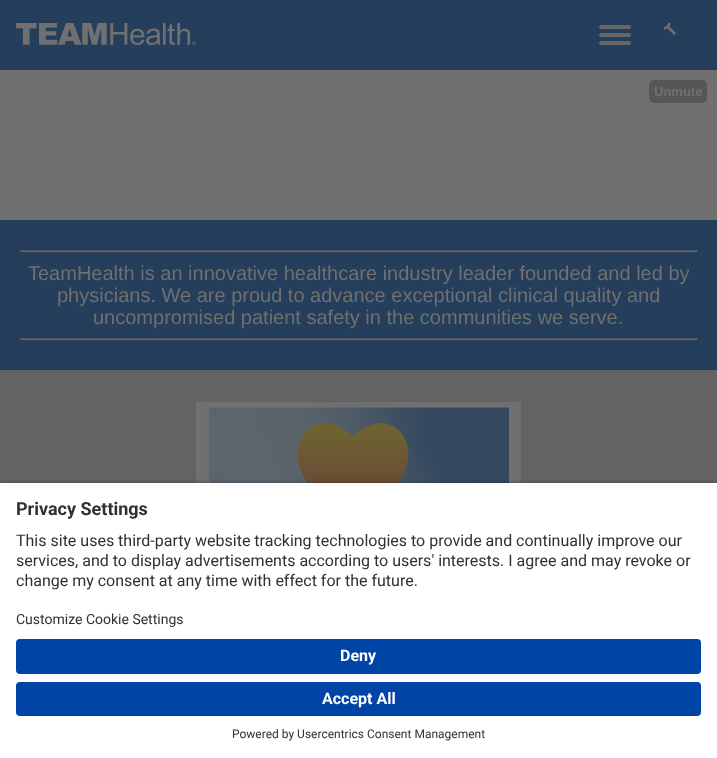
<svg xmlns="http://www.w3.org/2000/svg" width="717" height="758">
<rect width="100%" height="100%" fill="#707070"/>
<rect width="717" height="70" fill="#243e5b"/>
<image x="16" y="23" width="180" height="22" href="media/1.png"/>
<rect x="599" y="25" width="32" height="4" rx="2" fill="#666"/>
<rect x="599" y="33" width="32" height="4" rx="2" fill="#666"/>
<rect x="599" y="41" width="32" height="4" rx="2" fill="#666"/>
<image x="664" y="23" width="12" height="12" href="media/2.png"/>
<rect x="649" y="80" width="58" height="23" rx="5" fill="#565656"/>
<text x="654" y="96" style="font-family:Liberation Sans;font-size:13px;font-weight:bold;fill:#707070">Unmute</text>
<rect y="220" width="717" height="150" fill="#243e5b"/>
<rect x="20" y="250" width="677" height="1" fill="#535353"/>
<rect x="696" y="250" width="1" height="2" fill="#6b6b6b"/>
<rect x="20" y="251" width="677" height="1" fill="#6b6b6b"/>
<rect x="20" y="250" width="1" height="2" fill="#535353"/>
<text x="28" y="280" style="font-family:Liberation Sans;font-size:20px;fill:#707070">TeamHealth is an innovative healthcare industry leader founded and led by</text>
<text x="57" y="302" style="font-family:Liberation Sans;font-size:20px;fill:#707070">physicians. We are proud to advance exceptional clinical quality and</text>
<text x="93" y="324" style="font-family:Liberation Sans;font-size:20px;fill:#707070">uncompromised patient safety in the communities we serve.</text>
<rect x="20" y="338" width="677" height="1" fill="#535353"/>
<rect x="696" y="338" width="1" height="2" fill="#6b6b6b"/>
<rect x="20" y="339" width="677" height="1" fill="#6b6b6b"/>
<rect x="20" y="338" width="1" height="2" fill="#535353"/>
<rect y="370" width="717" height="113" fill="#636363"/>
<rect x="196" y="402" width="325" height="81" fill="#707070"/>
<image x="209" y="407" width="300" height="76" href="media/3.png"/>
<rect y="486" width="717" height="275" fill="#000000cc" filter="blur(3.5px)"/>
<rect y="483" width="717" height="275" fill="#fff"/>
<text x="16" y="515" style="font-family:Roboto;font-size:18px;font-weight:bold;fill:#303030">Privacy Settings</text>
<text x="16" y="546" style="font-family:Roboto;font-size:16px;fill:#303030">This site uses third-party website tracking technologies to provide and continually improve our</text>
<text x="16" y="566" style="font-family:Roboto;font-size:16px;fill:#303030">services, and to display advertisements according to users' interests. I agree and may revoke or</text>
<text x="16" y="586" style="font-family:Roboto;font-size:16px;fill:#303030">change my consent at any time with effect for the future.</text>
<text x="16" y="624" style="font-family:Roboto;font-size:14px;fill:#303030">Customize Cookie Settings</text>
<rect x="16" y="639" width="685" height="35" rx="4" fill="#0045a5"/>
<text x="340" y="661" style="font-family:Roboto;font-size:16px;font-weight:bold;fill:#fff">Deny</text>
<rect x="16" y="682" width="685" height="34" rx="4" fill="#0045a5"/>
<text x="322" y="704" style="font-family:Roboto;font-size:16px;font-weight:bold;fill:#fff">Accept All</text>
<text x="232" y="738" style="font-family:Roboto;font-size:12px;fill:#303030">Powered by Usercentrics Consent Management</text>
</svg>
